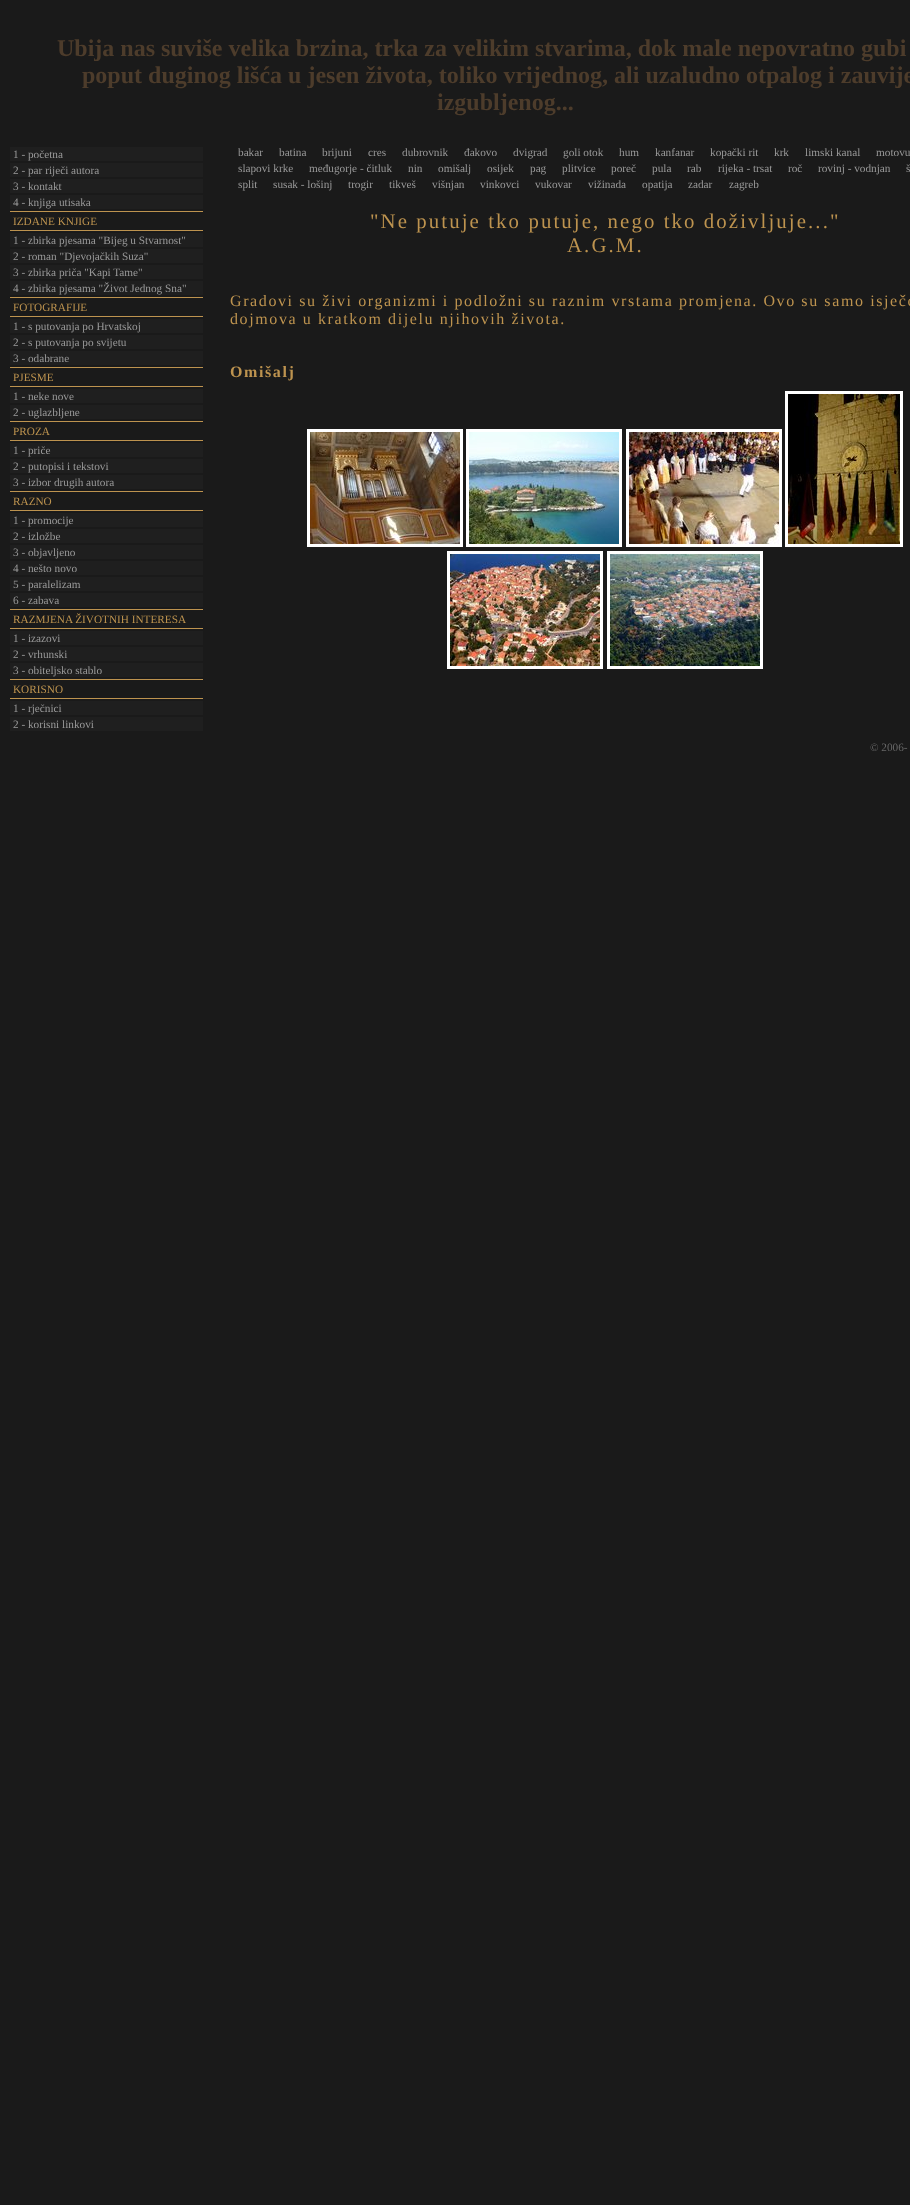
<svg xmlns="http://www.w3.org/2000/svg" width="910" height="2205">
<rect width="100%" height="100%" fill="#1a1a1a"/>
<text x="57" y="56" style="font-family:Liberation Serif;font-size:24px;font-weight:bold;fill:#4d3c2b">Ubija nas suviše velika brzina, trka za velikim stvarima, dok male nepovratno gubi</text>
<text x="82" y="83" style="font-family:Liberation Serif;font-size:24px;font-weight:bold;fill:#4d3c2b">poput duginog lišća u jesen života, toliko vrijednog, ali uzaludno otpalog i zauvije</text>
<text x="437" y="110" style="font-family:Liberation Serif;font-size:24px;font-weight:bold;fill:#4d3c2b">izgubljenog...</text>
<rect x="10" y="147" width="193" height="14" fill="#1f1f1f"/>
<text x="13" y="158" style="font-family:Liberation Serif;font-size:11.25px;fill:#999">1 - početna</text>
<rect x="10" y="163" width="193" height="14" fill="#1f1f1f"/>
<text x="13" y="174" style="font-family:Liberation Serif;font-size:11.25px;fill:#999">2 - par riječi autora</text>
<rect x="10" y="179" width="193" height="14" fill="#1f1f1f"/>
<text x="13" y="190" style="font-family:Liberation Serif;font-size:11.25px;fill:#999">3 - kontakt</text>
<rect x="10" y="195" width="193" height="14" fill="#1f1f1f"/>
<text x="13" y="206" style="font-family:Liberation Serif;font-size:11.25px;fill:#999">4 - knjiga utisaka</text>
<rect x="10" y="211" width="193" height="1" fill="#bd934f"/>
<rect x="10" y="230" width="193" height="1" fill="#bd934f"/>
<text x="13" y="225" style="font-family:Liberation Serif;font-size:11.25px;fill:#bd934f">IZDANE KNJIGE</text>
<rect x="10" y="233" width="193" height="14" fill="#1f1f1f"/>
<text x="13" y="244" style="font-family:Liberation Serif;font-size:11.25px;fill:#999">1 - zbirka pjesama "Bijeg u Stvarnost"</text>
<rect x="10" y="249" width="193" height="14" fill="#1f1f1f"/>
<text x="13" y="260" style="font-family:Liberation Serif;font-size:11.25px;fill:#999">2 - roman "Djevojačkih Suza"</text>
<rect x="10" y="265" width="193" height="14" fill="#1f1f1f"/>
<text x="13" y="276" style="font-family:Liberation Serif;font-size:11.25px;fill:#999">3 - zbirka priča "Kapi Tame"</text>
<rect x="10" y="281" width="193" height="14" fill="#1f1f1f"/>
<text x="13" y="292" style="font-family:Liberation Serif;font-size:11.25px;fill:#999">4 - zbirka pjesama "Život Jednog Sna"</text>
<rect x="10" y="297" width="193" height="1" fill="#bd934f"/>
<rect x="10" y="316" width="193" height="1" fill="#bd934f"/>
<text x="13" y="311" style="font-family:Liberation Serif;font-size:11.25px;fill:#bd934f">FOTOGRAFIJE</text>
<rect x="10" y="319" width="193" height="14" fill="#1f1f1f"/>
<text x="13" y="330" style="font-family:Liberation Serif;font-size:11.25px;fill:#999">1 - s putovanja po Hrvatskoj</text>
<rect x="10" y="335" width="193" height="14" fill="#1f1f1f"/>
<text x="13" y="346" style="font-family:Liberation Serif;font-size:11.25px;fill:#999">2 - s putovanja po svijetu</text>
<rect x="10" y="351" width="193" height="14" fill="#1f1f1f"/>
<text x="13" y="362" style="font-family:Liberation Serif;font-size:11.25px;fill:#999">3 - odabrane</text>
<rect x="10" y="367" width="193" height="1" fill="#bd934f"/>
<rect x="10" y="386" width="193" height="1" fill="#bd934f"/>
<text x="13" y="381" style="font-family:Liberation Serif;font-size:11.25px;fill:#bd934f">PJESME</text>
<rect x="10" y="389" width="193" height="14" fill="#1f1f1f"/>
<text x="13" y="400" style="font-family:Liberation Serif;font-size:11.25px;fill:#999">1 - neke nove</text>
<rect x="10" y="405" width="193" height="14" fill="#1f1f1f"/>
<text x="13" y="416" style="font-family:Liberation Serif;font-size:11.25px;fill:#999">2 - uglazbljene</text>
<rect x="10" y="421" width="193" height="1" fill="#bd934f"/>
<rect x="10" y="440" width="193" height="1" fill="#bd934f"/>
<text x="13" y="435" style="font-family:Liberation Serif;font-size:11.25px;fill:#bd934f">PROZA</text>
<rect x="10" y="443" width="193" height="14" fill="#1f1f1f"/>
<text x="13" y="454" style="font-family:Liberation Serif;font-size:11.25px;fill:#999">1 - priče</text>
<rect x="10" y="459" width="193" height="14" fill="#1f1f1f"/>
<text x="13" y="470" style="font-family:Liberation Serif;font-size:11.25px;fill:#999">2 - putopisi i tekstovi</text>
<rect x="10" y="475" width="193" height="14" fill="#1f1f1f"/>
<text x="13" y="486" style="font-family:Liberation Serif;font-size:11.25px;fill:#999">3 - izbor drugih autora</text>
<rect x="10" y="491" width="193" height="1" fill="#bd934f"/>
<rect x="10" y="510" width="193" height="1" fill="#bd934f"/>
<text x="13" y="505" style="font-family:Liberation Serif;font-size:11.25px;fill:#bd934f">RAZNO</text>
<rect x="10" y="513" width="193" height="14" fill="#1f1f1f"/>
<text x="13" y="524" style="font-family:Liberation Serif;font-size:11.25px;fill:#999">1 - promocije</text>
<rect x="10" y="529" width="193" height="14" fill="#1f1f1f"/>
<text x="13" y="540" style="font-family:Liberation Serif;font-size:11.25px;fill:#999">2 - izložbe</text>
<rect x="10" y="545" width="193" height="14" fill="#1f1f1f"/>
<text x="13" y="556" style="font-family:Liberation Serif;font-size:11.25px;fill:#999">3 - objavljeno</text>
<rect x="10" y="561" width="193" height="14" fill="#1f1f1f"/>
<text x="13" y="572" style="font-family:Liberation Serif;font-size:11.25px;fill:#999">4 - nešto novo</text>
<rect x="10" y="577" width="193" height="14" fill="#1f1f1f"/>
<text x="13" y="588" style="font-family:Liberation Serif;font-size:11.25px;fill:#999">5 - paralelizam</text>
<rect x="10" y="593" width="193" height="14" fill="#1f1f1f"/>
<text x="13" y="604" style="font-family:Liberation Serif;font-size:11.25px;fill:#999">6 - zabava</text>
<rect x="10" y="609" width="193" height="1" fill="#bd934f"/>
<rect x="10" y="628" width="193" height="1" fill="#bd934f"/>
<text x="13" y="623" style="font-family:Liberation Serif;font-size:11.25px;fill:#bd934f">RAZMJENA ŽIVOTNIH INTERESA</text>
<rect x="10" y="631" width="193" height="14" fill="#1f1f1f"/>
<text x="13" y="642" style="font-family:Liberation Serif;font-size:11.25px;fill:#999">1 - izazovi</text>
<rect x="10" y="647" width="193" height="14" fill="#1f1f1f"/>
<text x="13" y="658" style="font-family:Liberation Serif;font-size:11.25px;fill:#999">2 - vrhunski</text>
<rect x="10" y="663" width="193" height="14" fill="#1f1f1f"/>
<text x="13" y="674" style="font-family:Liberation Serif;font-size:11.25px;fill:#999">3 - obiteljsko stablo</text>
<rect x="10" y="679" width="193" height="1" fill="#bd934f"/>
<rect x="10" y="698" width="193" height="1" fill="#bd934f"/>
<text x="13" y="693" style="font-family:Liberation Serif;font-size:11.25px;fill:#bd934f">KORISNO</text>
<rect x="10" y="701" width="193" height="14" fill="#1f1f1f"/>
<text x="13" y="712" style="font-family:Liberation Serif;font-size:11.25px;fill:#999">1 - rječnici</text>
<rect x="10" y="717" width="193" height="14" fill="#1f1f1f"/>
<text x="13" y="728" style="font-family:Liberation Serif;font-size:11.25px;fill:#999">2 - korisni linkovi</text>
<text x="238" y="156" style="font-family:Liberation Serif;font-size:11.25px;fill:#999">bakar</text>
<text x="279" y="156" style="font-family:Liberation Serif;font-size:11.25px;fill:#999">batina</text>
<text x="322" y="156" style="font-family:Liberation Serif;font-size:11.25px;fill:#999">brijuni</text>
<text x="368" y="156" style="font-family:Liberation Serif;font-size:11.25px;fill:#999">cres</text>
<text x="402" y="156" style="font-family:Liberation Serif;font-size:11.25px;fill:#999">dubrovnik</text>
<text x="464" y="156" style="font-family:Liberation Serif;font-size:11.25px;fill:#999">đakovo</text>
<text x="513" y="156" style="font-family:Liberation Serif;font-size:11.25px;fill:#999">dvigrad</text>
<text x="563" y="156" style="font-family:Liberation Serif;font-size:11.25px;fill:#999">goli otok</text>
<text x="619" y="156" style="font-family:Liberation Serif;font-size:11.25px;fill:#999">hum</text>
<text x="655" y="156" style="font-family:Liberation Serif;font-size:11.25px;fill:#999">kanfanar</text>
<text x="710" y="156" style="font-family:Liberation Serif;font-size:11.25px;fill:#999">kopački rit</text>
<text x="774" y="156" style="font-family:Liberation Serif;font-size:11.25px;fill:#999">krk</text>
<text x="805" y="156" style="font-family:Liberation Serif;font-size:11.25px;fill:#999">limski kanal</text>
<text x="876" y="156" style="font-family:Liberation Serif;font-size:11.25px;fill:#999">motovu</text>
<text x="238" y="172" style="font-family:Liberation Serif;font-size:11.25px;fill:#999">slapovi krke</text>
<text x="309" y="172" style="font-family:Liberation Serif;font-size:11.25px;fill:#999">međugorje - čitluk</text>
<text x="408" y="172" style="font-family:Liberation Serif;font-size:11.25px;fill:#999">nin</text>
<text x="438" y="172" style="font-family:Liberation Serif;font-size:11.25px;fill:#999">omišalj</text>
<text x="487" y="172" style="font-family:Liberation Serif;font-size:11.25px;fill:#999">osijek</text>
<text x="530" y="172" style="font-family:Liberation Serif;font-size:11.25px;fill:#999">pag</text>
<text x="562" y="172" style="font-family:Liberation Serif;font-size:11.25px;fill:#999">plitvice</text>
<text x="611" y="172" style="font-family:Liberation Serif;font-size:11.25px;fill:#999">poreč</text>
<text x="652" y="172" style="font-family:Liberation Serif;font-size:11.25px;fill:#999">pula</text>
<text x="687" y="172" style="font-family:Liberation Serif;font-size:11.25px;fill:#999">rab</text>
<text x="718" y="172" style="font-family:Liberation Serif;font-size:11.25px;fill:#999">rijeka - trsat</text>
<text x="788" y="172" style="font-family:Liberation Serif;font-size:11.25px;fill:#999">roč</text>
<text x="818" y="172" style="font-family:Liberation Serif;font-size:11.25px;fill:#999">rovinj - vodnjan</text>
<text x="906" y="172" style="font-family:Liberation Serif;font-size:11.25px;fill:#999">š</text>
<text x="238" y="188" style="font-family:Liberation Serif;font-size:11.25px;fill:#999">split</text>
<text x="273" y="188" style="font-family:Liberation Serif;font-size:11.25px;fill:#999">susak - lošinj</text>
<text x="348" y="188" style="font-family:Liberation Serif;font-size:11.25px;fill:#999">trogir</text>
<text x="389" y="188" style="font-family:Liberation Serif;font-size:11.25px;fill:#999">tikveš</text>
<text x="432" y="188" style="font-family:Liberation Serif;font-size:11.25px;fill:#999">višnjan</text>
<text x="480" y="188" style="font-family:Liberation Serif;font-size:11.25px;fill:#999">vinkovci</text>
<text x="535" y="188" style="font-family:Liberation Serif;font-size:11.25px;fill:#999">vukovar</text>
<text x="588" y="188" style="font-family:Liberation Serif;font-size:11.25px;fill:#999">vižinada</text>
<text x="642" y="188" style="font-family:Liberation Serif;font-size:11.25px;fill:#999">opatija</text>
<text x="688" y="188" style="font-family:Liberation Serif;font-size:11.25px;fill:#999">zadar</text>
<text x="729" y="188" style="font-family:Liberation Serif;font-size:11.25px;fill:#999">zagreb</text>
<text x="370" y="228" style="font-family:Liberation Serif;font-size:20.8px;letter-spacing:2.1px;fill:#bd934f">"Ne putuje tko putuje, nego tko doživljuje..."</text>
<text x="567" y="252" style="font-family:Liberation Serif;font-size:20.8px;letter-spacing:2.1px;fill:#bd934f">A.G.M.</text>
<text x="230" y="306" style="font-family:Liberation Serif;font-size:16px;letter-spacing:1.6px;fill:#bd934f">Gradovi su živi organizmi i podložni su raznim vrstama promjena. Ovo su samo isječc</text>
<text x="230" y="324" style="font-family:Liberation Serif;font-size:16px;letter-spacing:1.6px;fill:#bd934f">dojmova u kratkom dijelu njihovih života.</text>
<text x="230" y="377" style="font-family:Liberation Serif;font-size:16px;font-weight:bold;letter-spacing:1.6px;fill:#bd934f">Omišalj</text>
<rect x="785" y="391" width="118" height="156" fill="#fff"/>
<rect x="307" y="429" width="156" height="118" fill="#fff"/>
<rect x="466" y="429" width="156" height="118" fill="#fff"/>
<rect x="626" y="429" width="156" height="118" fill="#fff"/>
<image x="788" y="394" width="112" height="150" href="media/1.png"/>
<image x="310" y="432" width="150" height="112" href="media/2.png"/>
<image x="469" y="432" width="150" height="112" href="media/3.png"/>
<image x="629" y="432" width="150" height="112" href="media/4.png"/>
<rect x="447" y="551" width="156" height="118" fill="#fff"/>
<rect x="607" y="551" width="156" height="118" fill="#fff"/>
<image x="450" y="554" width="150" height="112" href="media/5.png"/>
<image x="610" y="554" width="150" height="112" href="media/6.png"/>
<text x="870" y="751" style="font-family:Liberation Serif;font-size:11.25px;fill:#666">© 2006-</text>
</svg>
